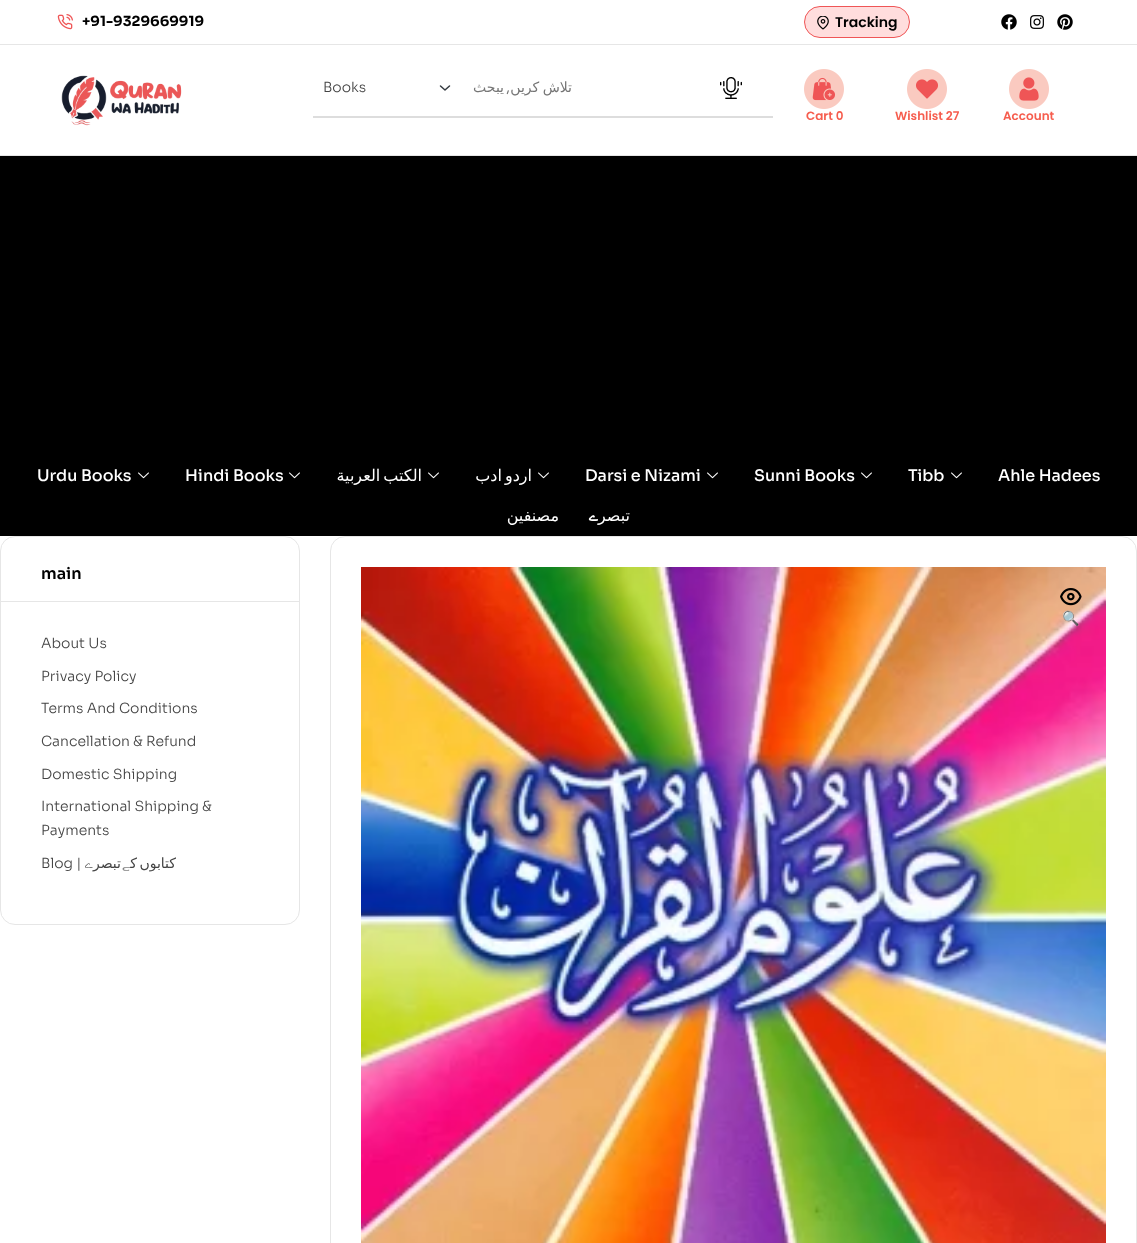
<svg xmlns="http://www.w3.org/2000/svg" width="1137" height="1243">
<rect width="100%" height="100%" fill="#fff"/>
<rect y="44" width="1137" height="1" fill="#e6e6e6"/>
<image x="57" y="14" width="16" height="16" href="media/1.png"/>
<text x="82" y="26" style="font-family:Sora;font-size:14px;font-weight:bold;fill:#000">+91-9329669919</text>
<rect x="804.5" y="6.5" width="105" height="31" rx="15.5" fill="#fdd" stroke="#ef5556"/>
<image x="817" y="16" width="12" height="14" href="media/2.png"/>
<text x="835" y="27" style="font-family:Poppins;font-size:14px;font-weight:600;fill:#000">Tracking</text>
<image x="1001" y="14" width="16" height="16" href="media/3.png"/>
<image x="1030" y="15" width="14" height="14" href="media/4.png"/>
<image x="1057" y="14" width="16" height="16" href="media/5.png"/>
<rect y="155" width="1137" height="1" fill="#e6e6e6"/>
<image x="61" y="75" width="121" height="51" href="media/6.png"/>
<rect x="313" y="116" width="460" height="2" fill="#ddd"/>
<path d="M440.5 86l4.5 4l4.5-4" fill="none" stroke="#343a40" stroke-width="1.5" stroke-linecap="round" stroke-linejoin="round"/>
<text x="323" y="92" style="font-family:Sora;font-size:14px;font-weight:300;fill:#444">Books</text>
<text x="504" y="92" style="font-family:DejaVu Sans;font-size:14px;direction:rtl;fill:#757575">يبحث</text>
<text x="510" y="92" style="font-family:Sora;font-size:14px;direction:rtl;fill:#757575">,</text>
<text x="572" y="92" word-spacing="-1" style="font-family:DejaVu Sans;font-size:14px;direction:rtl;fill:#757575">تلاش کریں</text>
<image x="720" y="77" width="22" height="22" href="media/7.png"/>
<image x="804" y="69" width="40" height="40" href="media/8.png"/>
<text x="806" y="120" style="font-family:Poppins;font-size:12px;font-weight:600;fill:#f65d4e">Cart 0</text>
<image x="907" y="69" width="40" height="40" href="media/9.png"/>
<text x="895" y="120" style="font-family:Poppins;font-size:12px;font-weight:600;fill:#f65d4e">Wishlist 27</text>
<image x="1009" y="69" width="40" height="40" href="media/10.png"/>
<text x="1003" y="120" style="font-family:Poppins;font-size:12px;font-weight:600;fill:#f65d4e">Account</text>
<rect y="156" width="1137" height="380" fill="#000"/>
<text x="37" y="481" style="font-family:Sora;font-size:16px;font-weight:500;fill:#fff">Urdu Books</text>
<image x="138" y="472" width="11" height="7" href="media/11.png"/>
<text x="185" y="481" style="font-family:Sora;font-size:16px;font-weight:500;fill:#fff">Hindi Books</text>
<image x="289" y="472" width="11" height="7" href="media/11.png"/>
<text x="422" y="481" word-spacing="-2" style="font-family:DejaVu Sans;font-size:16px;direction:rtl;fill:#fff">الكتب العربية</text>
<image x="428" y="472" width="11" height="7" href="media/11.png"/>
<text x="532" y="481" word-spacing="-2" style="font-family:DejaVu Sans;font-size:16px;direction:rtl;fill:#fff">اردو ادب</text>
<image x="538" y="472" width="11" height="7" href="media/11.png"/>
<text x="585" y="481" style="font-family:Sora;font-size:16px;font-weight:500;fill:#fff">Darsi e Nizami</text>
<image x="707" y="472" width="11" height="7" href="media/11.png"/>
<text x="754" y="481" style="font-family:Sora;font-size:16px;font-weight:500;fill:#fff">Sunni Books</text>
<image x="861" y="472" width="11" height="7" href="media/11.png"/>
<text x="908" y="481" style="font-family:Sora;font-size:16px;font-weight:500;fill:#fff">Tibb</text>
<image x="951" y="472" width="11" height="7" href="media/11.png"/>
<text x="998" y="481" style="font-family:Sora;font-size:16px;font-weight:500;fill:#fff">Ahle Hadees</text>
<text x="559" y="521" style="font-family:DejaVu Sans;font-size:16px;direction:rtl;fill:#fff">مصنفین</text>
<text x="598" y="521" style="font-family:Cascadia Code;font-size:16px;font-weight:500;direction:rtl;fill:#fff">ے</text>
<text x="630" y="521" style="font-family:DejaVu Sans;font-size:16px;direction:rtl;fill:#fff">تبصر</text>
<rect x="0.5" y="536.5" width="299" height="388" rx="14.5" fill="none" stroke="#e6e6e6"/>
<rect x="1" y="601" width="298" height="1" fill="#e6e6e6"/>
<text x="41" y="579" style="font-family:Sora;font-size:16px;font-weight:600;fill:#000">main</text>
<text x="41" y="648" style="font-family:Sora;font-size:14px;font-weight:300;fill:#444">About Us</text>
<text x="41" y="681" style="font-family:Sora;font-size:14px;font-weight:300;fill:#444">Privacy Policy</text>
<text x="41" y="713" style="font-family:Sora;font-size:14px;font-weight:300;fill:#444">Terms And Conditions</text>
<text x="41" y="746" style="font-family:Sora;font-size:14px;font-weight:300;fill:#444">Cancellation &amp; Refund</text>
<text x="41" y="779" style="font-family:Sora;font-size:14px;font-weight:300;fill:#444">Domestic Shipping</text>
<text x="41" y="811" style="font-family:Sora;font-size:14px;font-weight:300;fill:#444">International Shipping &amp;</text>
<text x="41" y="835" style="font-family:Sora;font-size:14px;font-weight:300;fill:#444">Payments</text>
<text x="41" y="868" style="font-family:Sora;font-size:14px;font-weight:300;fill:#444">Blog |</text>
<text x="93" y="868" style="font-family:Cascadia Code;font-size:14px;font-weight:200;direction:rtl;fill:#444">ے</text>
<text x="121" y="868" style="font-family:DejaVu Sans;font-size:14px;direction:rtl;fill:#444">تبصر</text>
<text x="130" y="868" style="font-family:Cascadia Code;font-size:14px;font-weight:200;direction:rtl;fill:#444">‍ے</text>
<text x="176" y="868" word-spacing="-2" style="font-family:DejaVu Sans;font-size:14px;direction:rtl;fill:#444">کتابوں ک‍</text>
<rect x="330.5" y="536.5" width="806" height="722" rx="14.5" fill="none" stroke="#e6e6e6"/>
<image x="361" y="567" width="745" height="676" href="media/12.png"/>
<image x="1060" y="588" width="22" height="18" href="media/13.png"/>
<text x="1062" y="623" style="font-family:Noto Color Emoji;font-size:14px;fill:#000">🔍</text>
</svg>
